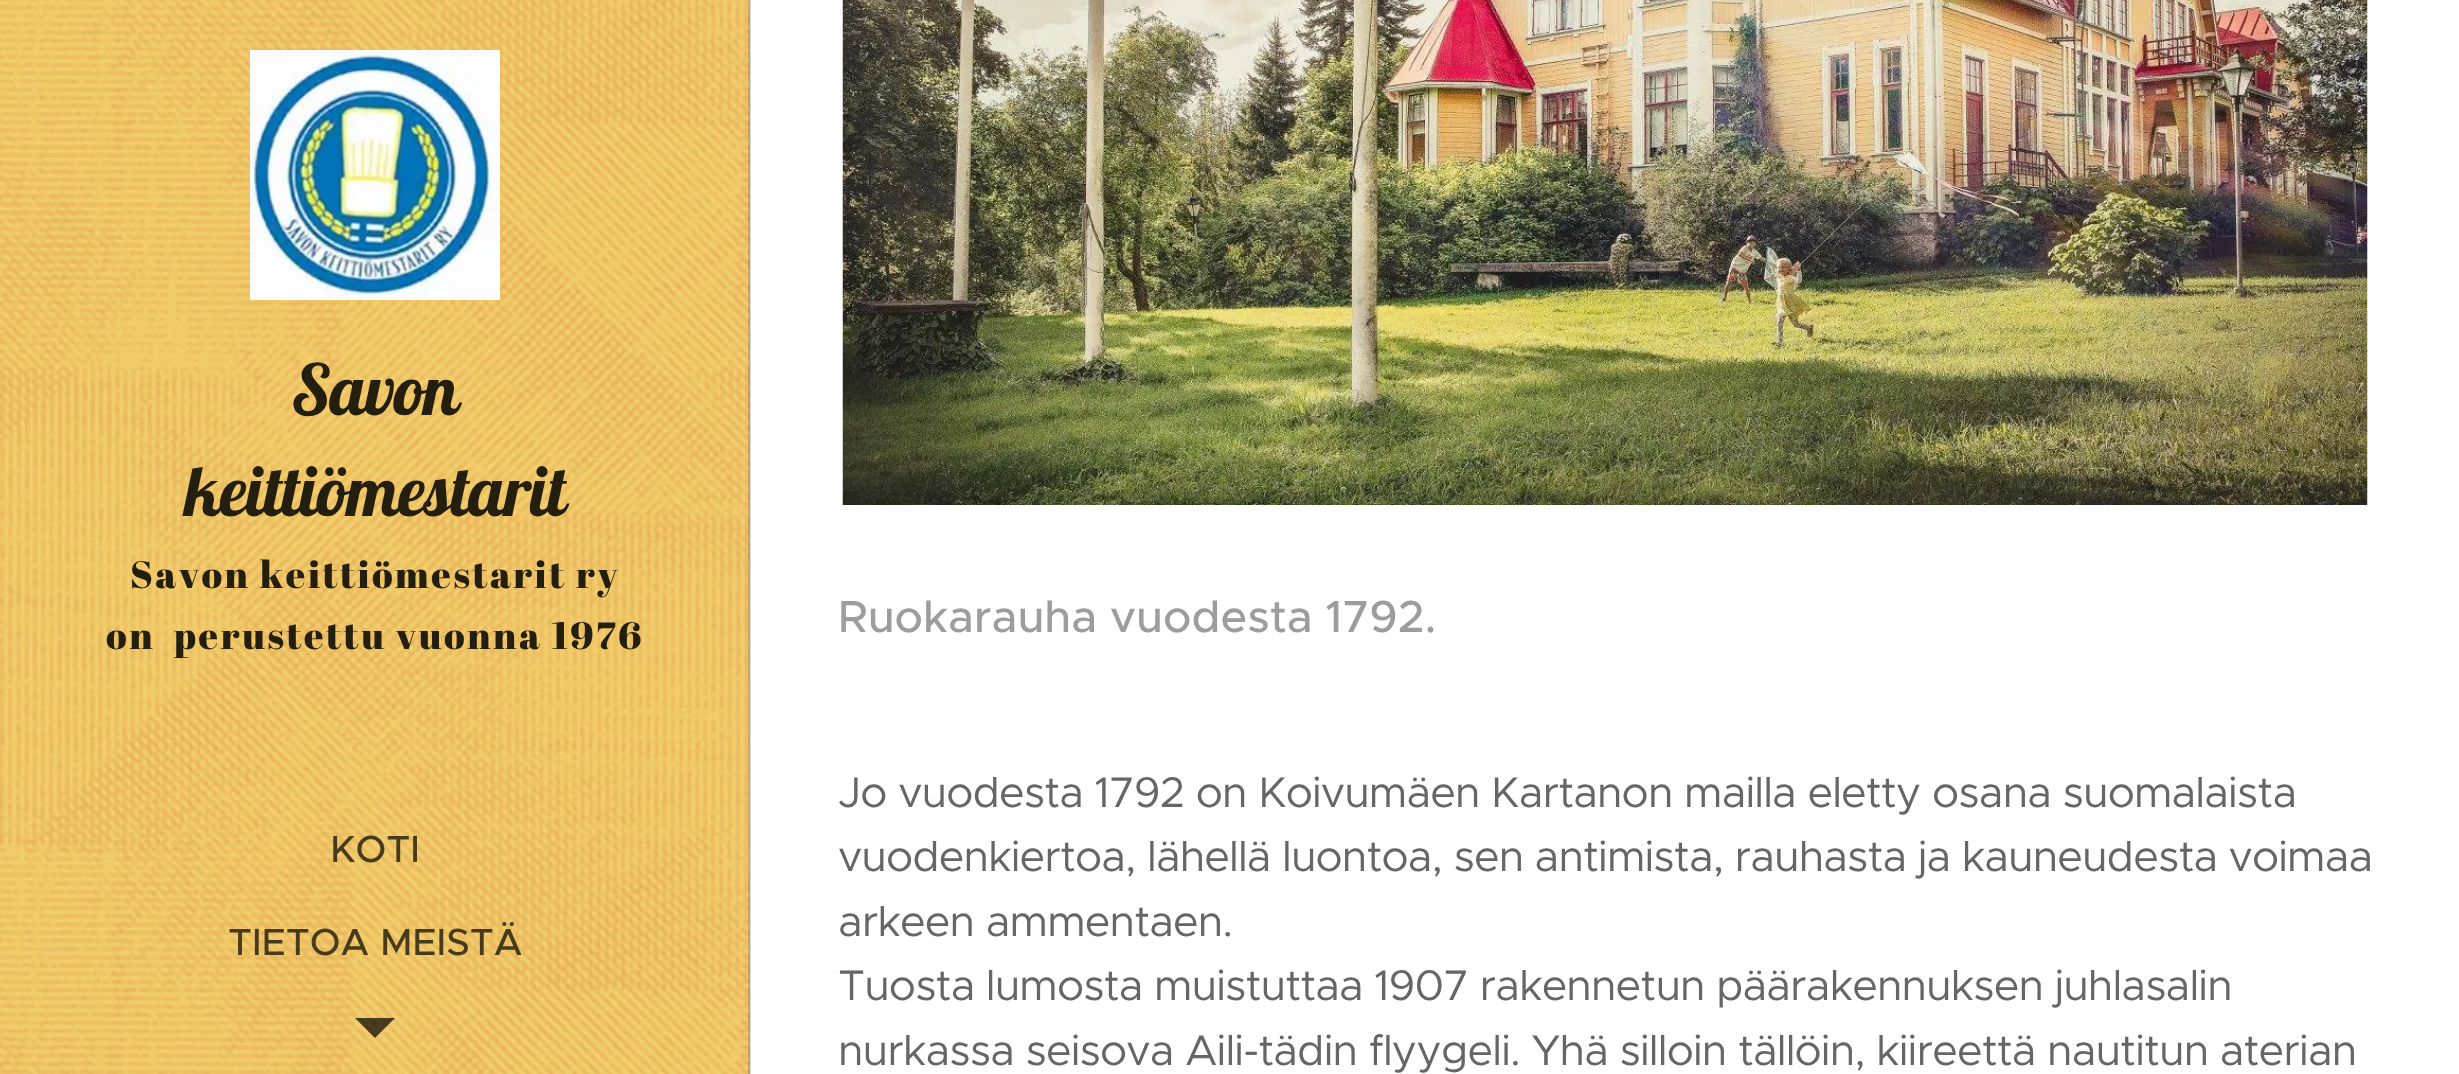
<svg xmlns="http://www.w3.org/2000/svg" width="2459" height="1074">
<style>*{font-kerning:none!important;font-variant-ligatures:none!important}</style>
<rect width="100%" height="100%" fill="#fff"/>
<image x="0" y="0" width="750" height="1074" href="media/1.png"/>
<image x="250" y="50" width="250" height="250" href="media/2.png"/>
<text x="291" y="415" style="font-family:Lobster;font-size:70px;letter-spacing:-0.85px;fill:#241e0f">Savon</text>
<text x="185" y="516" style="font-family:Lobster;font-size:70px;letter-spacing:-0.85px;fill:#241e0f">keittiömestarit</text>
<text x="130" y="588" style="font-family:Abril Fatface;font-size:38px;letter-spacing:2.5px;fill:#241e0f">Savon keittiömestarit ry</text>
<text x="106" y="649" style="font-family:Abril Fatface;font-size:38px;letter-spacing:2.5px;fill:#241e0f" xml:space="preserve">on  perustettu vuonna 1976</text>
<text x="330" y="862" style="font-family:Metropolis;font-size:38px;font-weight:500;fill:#473b1e">KOTI</text>
<text x="228" y="955" style="font-family:Metropolis;font-size:38px;font-weight:500;fill:#473b1e">TIETOA MEISTÄ</text>
<path d="M355 1018h40l-20 20z" fill="#000000b3"/>
<rect x="748" width="3" height="1074" fill="#00000026"/>
<image x="842" y="0" width="1526" height="505" href="media/3.png"/>
<text x="838" y="632" style="font-family:Metropolis;font-size:45px;font-weight:500;fill:#9d9d9d">Ruokarauha vuodesta 1792.</text>
<text x="838" y="807" word-spacing="-0.1" style="font-family:Metropolis;font-size:43px;letter-spacing:-0.85px;fill:#666">Jo vuodesta 1792 on Koivumäen Kartanon mailla eletty osana suomalaista</text>
<text x="838" y="871" word-spacing="-0.25" style="font-family:Metropolis;font-size:43px;letter-spacing:-0.85px;fill:#666">vuodenkiertoa, lähellä luontoa, sen antimista, rauhasta ja kauneudesta voimaa</text>
<text x="838" y="936" style="font-family:Metropolis;font-size:43px;letter-spacing:-0.85px;fill:#666">arkeen ammentaen.</text>
<text x="838" y="1000" word-spacing="-0.25" style="font-family:Metropolis;font-size:43px;letter-spacing:-0.85px;fill:#666">Tuosta lumosta muistuttaa 1907 rakennetun päärakennuksen juhlasalin</text>
<text x="838" y="1065" word-spacing="-0.1" style="font-family:Metropolis;font-size:43px;letter-spacing:-0.85px;fill:#666">nurkassa seisova Aili-tädin flyygeli. Yhä silloin tällöin, kiireettä nautitun aterian</text>
</svg>
